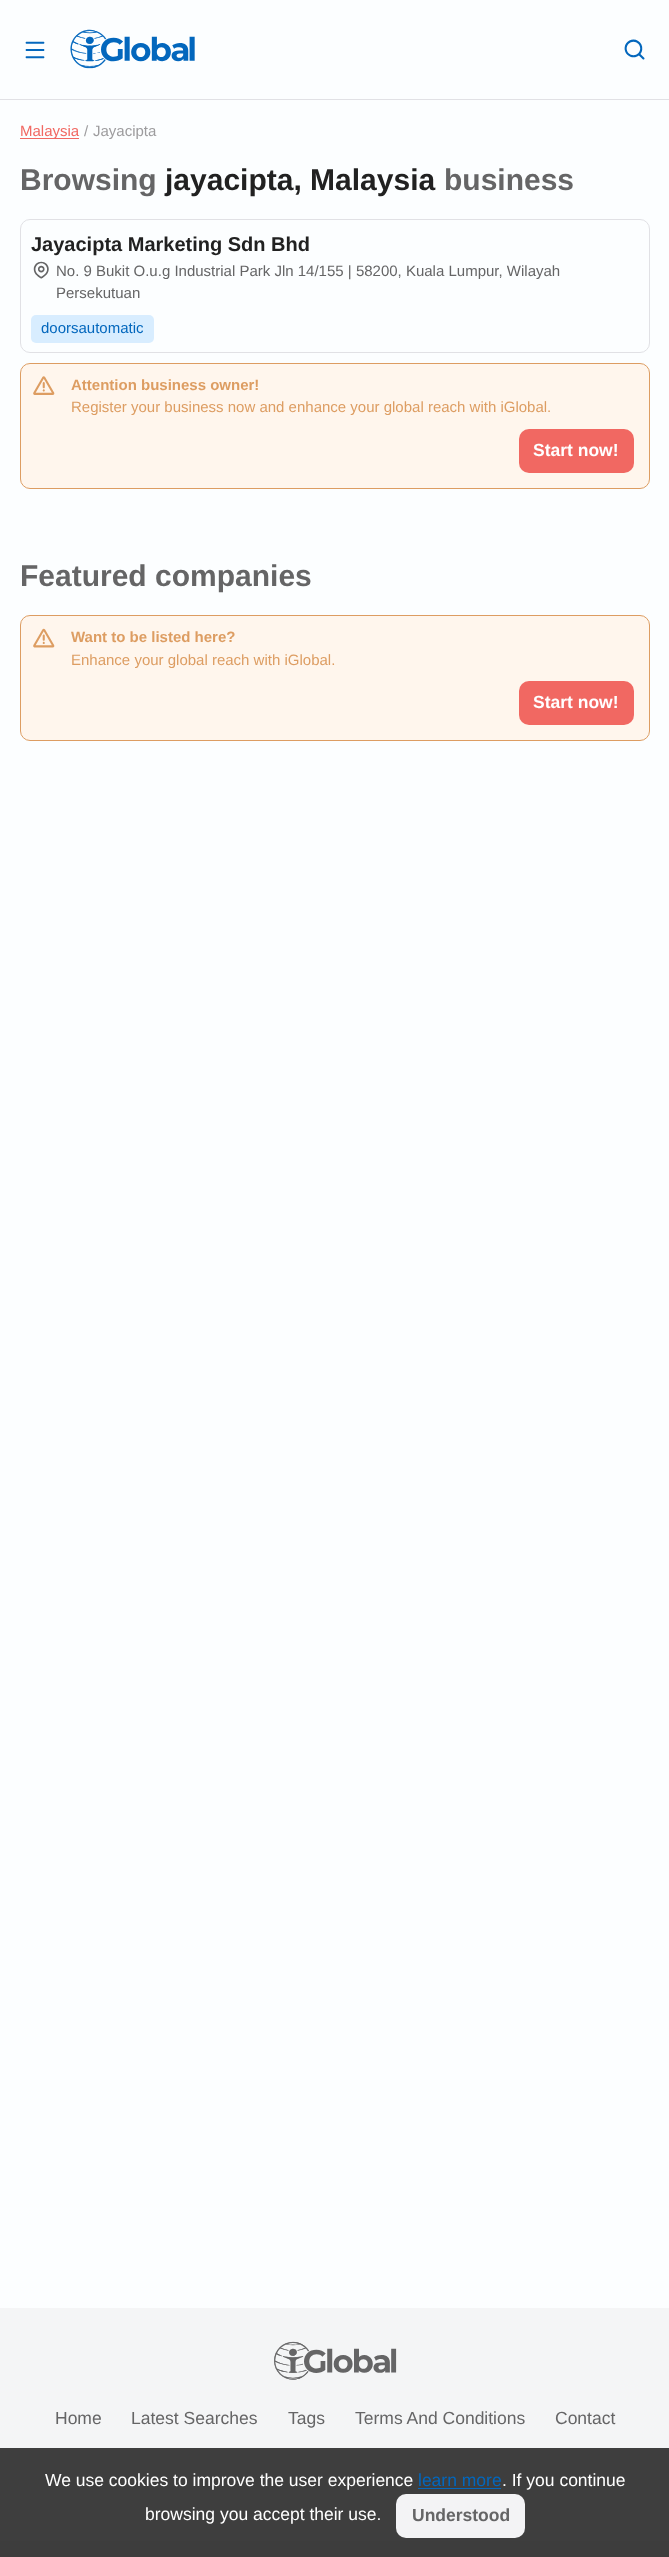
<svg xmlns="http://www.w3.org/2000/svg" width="669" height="2557">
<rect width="100%" height="100%" fill="#fcfeff"/>
<rect y="99" width="669" height="1" fill="#e1e1e5"/>
<image x="25" y="41" width="20" height="18" href="media/1.png"/>
<image x="70" y="29" width="125" height="40" href="media/2.png"/>
<image x="624" y="39" width="21" height="21" href="media/3.png"/>
<rect x="20" y="138" width="59" height="1" fill="#f16862"/>
<text x="20" y="136" style="font-family:Liberation Sans;font-size:15px;fill:#f16862">Malaysia</text>
<text x="84" y="136" style="font-family:Liberation Sans;font-size:15px;fill:#9d9c9e">/</text>
<text x="93" y="136" style="font-family:Liberation Sans;font-size:15px;fill:#9d9c9e">Jayacipta</text>
<text x="20" y="190" style="font-family:Liberation Sans;font-size:30px;font-weight:bold;fill:#656566">Browsing</text>
<text x="165" y="190" style="font-family:Liberation Sans;font-size:30px;font-weight:bold;fill:#212121">jayacipta, Malaysia</text>
<text x="444" y="190" style="font-family:Liberation Sans;font-size:30px;font-weight:bold;fill:#656566">business</text>
<rect x="20.5" y="219.5" width="629" height="133" rx="9.5" fill="none" stroke="#e1e1e5"/>
<text x="31" y="251" style="font-family:Liberation Sans;font-size:20px;font-weight:bold;fill:#212121">Jayacipta Marketing Sdn Bhd</text>
<image x="33" y="261" width="16" height="18" href="media/4.png"/>
<text x="56" y="276" style="font-family:Liberation Sans;font-size:15px;fill:#656566">No. 9 Bukit O.u.g Industrial Park Jln 14/155 | 58200, Kuala Lumpur, Wilayah</text>
<text x="56" y="298" style="font-family:Liberation Sans;font-size:15px;fill:#656566">Persekutuan</text>
<rect x="31" y="315" width="123" height="28" rx="5" fill="#d8edff"/>
<text x="41" y="333" style="font-family:Liberation Sans;font-size:15px;fill:#0367bd">doorsautomatic</text>
<rect x="20.5" y="363.5" width="629" height="125" rx="9.5" fill="#fff6ed" stroke="#dd9d62"/>
<image x="33" y="376" width="22" height="19" href="media/5.png"/>
<text x="71" y="390" style="font-family:Liberation Sans;font-size:15px;font-weight:bold;fill:#dd9d62">Attention business owner!</text>
<text x="71" y="412" style="font-family:Liberation Sans;font-size:15px;fill:#dd9d62">Register your business now and enhance your global reach with iGlobal.</text>
<rect x="519" y="429" width="115" height="44" rx="10" fill="#f16862"/>
<text x="533" y="456" style="font-family:Liberation Sans;font-size:17.5px;font-weight:bold;fill:#fff">Start now!</text>
<text x="20" y="586" style="font-family:Liberation Sans;font-size:30px;font-weight:bold;fill:#656566">Featured companies</text>
<rect x="20.5" y="615.5" width="629" height="125" rx="9.5" fill="#fff6ed" stroke="#dd9d62"/>
<image x="33" y="628" width="22" height="20" href="media/6.png"/>
<text x="71" y="642" style="font-family:Liberation Sans;font-size:15px;font-weight:bold;fill:#dd9d62">Want to be listed here?</text>
<text x="71" y="665" style="font-family:Liberation Sans;font-size:15px;fill:#dd9d62">Enhance your global reach with iGlobal.</text>
<rect x="519" y="681" width="115" height="44" rx="10" fill="#f16862"/>
<text x="533" y="708" style="font-family:Liberation Sans;font-size:17.5px;font-weight:bold;fill:#fff">Start now!</text>
<rect y="2308" width="669" height="249" fill="#f4f5f6"/>
<image x="274" y="2341" width="123" height="39" href="media/7.png"/>
<text x="55" y="2424" style="font-family:Liberation Sans;font-size:17.5px;fill:#656566">Home</text>
<text x="131" y="2424" style="font-family:Liberation Sans;font-size:17.5px;fill:#656566">Latest Searches</text>
<text x="288" y="2424" style="font-family:Liberation Sans;font-size:17.5px;fill:#656566">Tags</text>
<text x="355" y="2424" style="font-family:Liberation Sans;font-size:17.5px;fill:#656566">Terms And Conditions</text>
<text x="555" y="2424" style="font-family:Liberation Sans;font-size:17.5px;fill:#656566">Contact</text>
<rect y="2448" width="669" height="109" fill="#222222de"/>
<text x="45" y="2486" style="font-family:Liberation Sans;font-size:17.5px;fill:#fff">We use cookies to improve the user experience</text>
<text x="418" y="2486" style="font-family:Liberation Sans;font-size:17.5px;fill:#0367bd">learn more</text>
<rect x="418" y="2488" width="83" height="1" fill="#0367bd"/>
<text x="502" y="2486" style="font-family:Liberation Sans;font-size:17.5px;fill:#fff">. If you continue</text>
<text x="145" y="2520" style="font-family:Liberation Sans;font-size:17.5px;fill:#fff">browsing you accept their use.</text>
<rect x="396" y="2494" width="129" height="44" rx="10" fill="#f3f3f5"/>
<text x="412" y="2521" style="font-family:Liberation Sans;font-size:17.5px;font-weight:bold;fill:#656566">Understood</text>
</svg>
